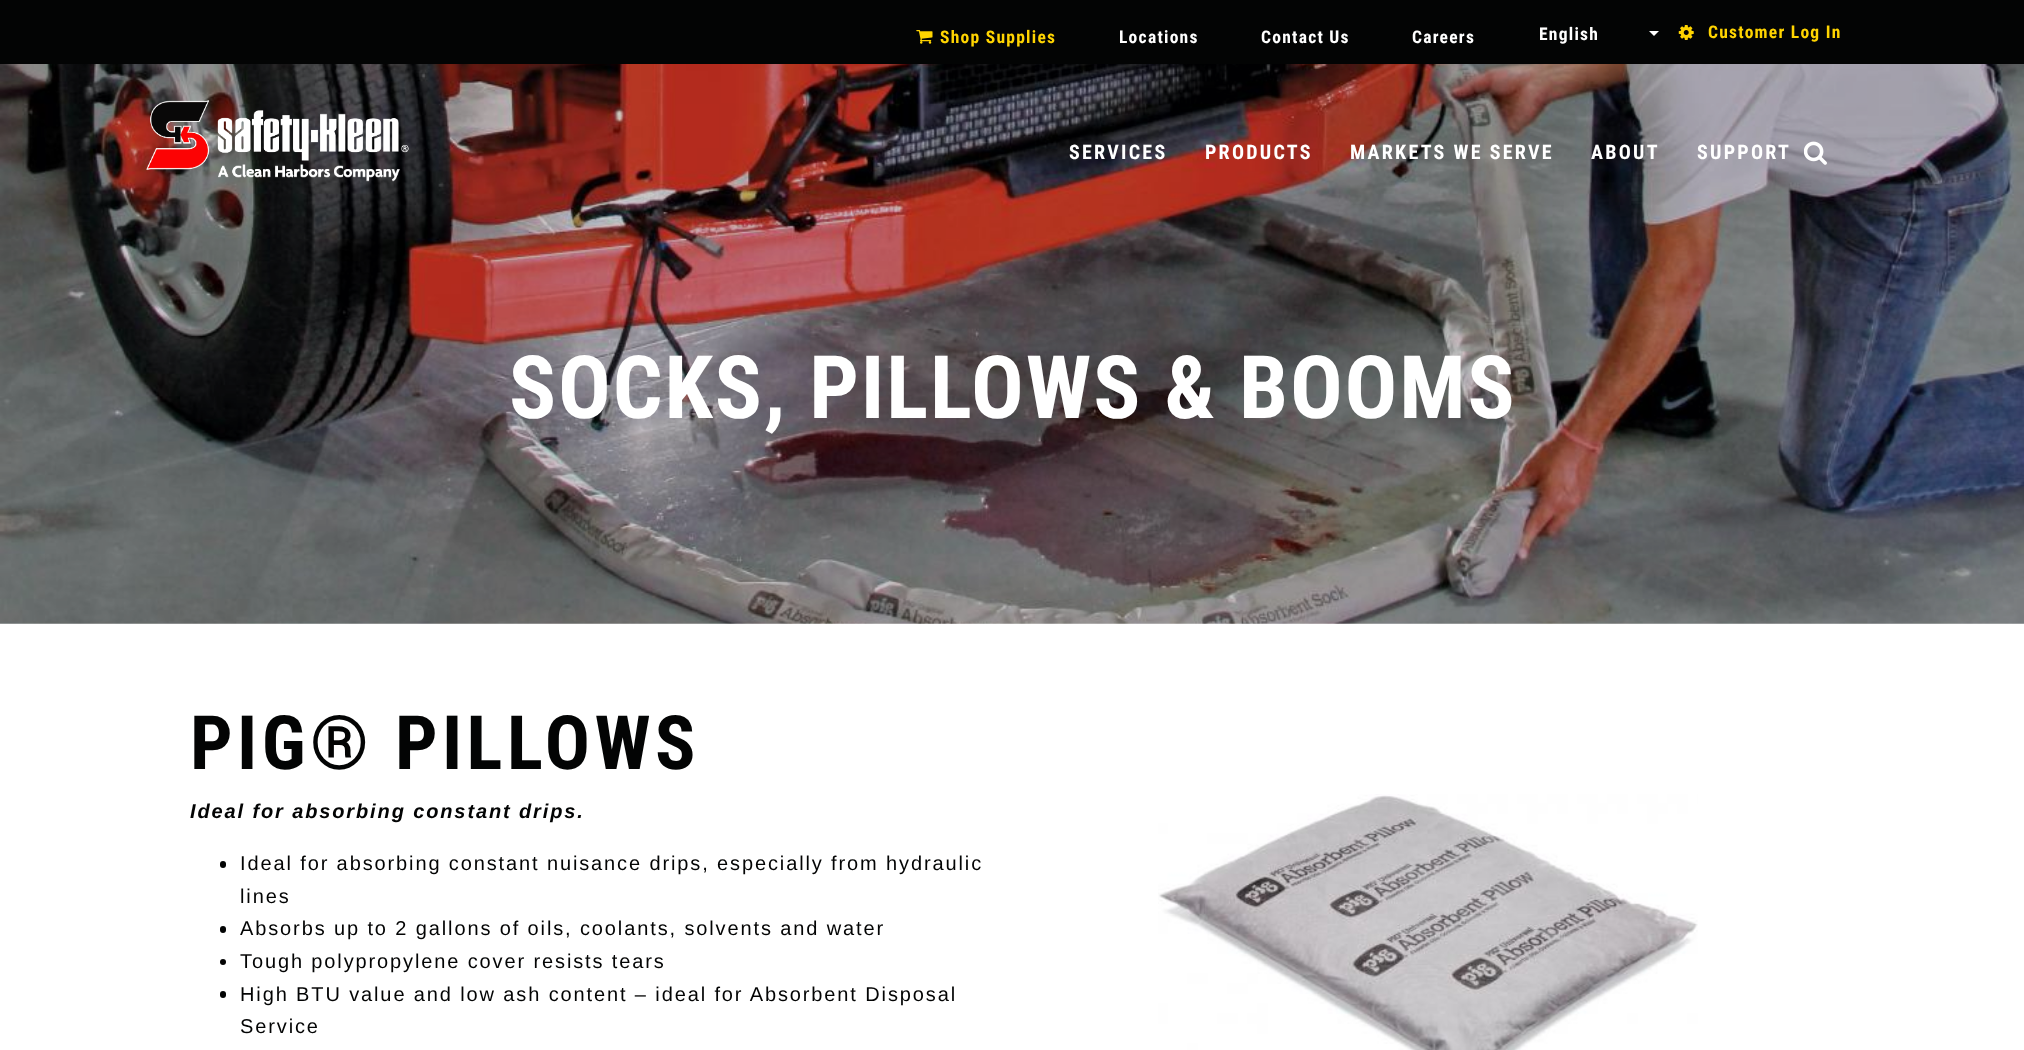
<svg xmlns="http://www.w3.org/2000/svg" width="2024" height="1050">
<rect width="100%" height="100%" fill="#fff"/>
<rect width="2024" height="64" fill="#030404"/>
<image x="916" y="30" width="17" height="14" href="media/1.png"/>
<text x="940" y="43" style="font-family:Roboto Condensed;font-size:17.5px;font-weight:bold;letter-spacing:1.25px;fill:#ffd400">Shop Supplies</text>
<text x="1119" y="43" style="font-family:Roboto Condensed;font-size:17.5px;font-weight:bold;letter-spacing:1.25px;fill:#fff">Locations</text>
<text x="1261" y="43" style="font-family:Roboto Condensed;font-size:17.5px;font-weight:bold;letter-spacing:1.25px;fill:#fff">Contact Us</text>
<text x="1412" y="43" style="font-family:Roboto Condensed;font-size:17.5px;font-weight:bold;letter-spacing:1.25px;fill:#fff">Careers</text>
<text x="1539" y="40" style="font-family:Roboto Condensed;font-size:17.5px;font-weight:bold;letter-spacing:1.25px;fill:#fff">English</text>
<path d="M1649 31h10l-5 5z" fill="#fff"/>
<image x="1678" y="25" width="16" height="15" href="media/2.png"/>
<text x="1708" y="38" style="font-family:Roboto Condensed;font-size:17.5px;font-weight:bold;letter-spacing:1.25px;fill:#ffd400">Customer Log In</text>
<image x="0" y="64" width="2024" height="560" href="media/5.png"/>
<image x="146" y="100" width="263" height="82" href="media/3.png"/>
<text x="1069" y="159" style="font-family:Roboto Condensed;font-size:20px;font-weight:bold;letter-spacing:2.25px;fill:#fff">SERVICES</text>
<text x="1205" y="159" style="font-family:Roboto Condensed;font-size:20px;font-weight:bold;letter-spacing:2.25px;fill:#fff">PRODUCTS</text>
<text x="1350" y="159" style="font-family:Roboto Condensed;font-size:20px;font-weight:bold;letter-spacing:2.25px;fill:#fff">MARKETS WE SERVE</text>
<text x="1591" y="159" style="font-family:Roboto Condensed;font-size:20px;font-weight:bold;letter-spacing:2.25px;fill:#fff">ABOUT</text>
<text x="1697" y="159" style="font-family:Roboto Condensed;font-size:20px;font-weight:bold;letter-spacing:2.25px;fill:#fff">SUPPORT</text>
<image x="1804" y="141" width="23" height="24" href="media/4.png"/>
<text x="509" y="418" style="font-family:Roboto Condensed;font-size:87.5px;font-weight:bold;letter-spacing:1.88px;fill:#fff">SOCKS, PILLOWS &amp; BOOMS</text>
<text x="190" y="769" style="font-family:Roboto Condensed;font-size:75px;font-weight:bold;letter-spacing:4.4px;fill:#030404">PIG® PILLOWS</text>
<text x="190" y="818" style="font-family:Liberation Sans;font-size:20px;font-weight:bold;font-style:italic;letter-spacing:1.88px;fill:#030404">Ideal for absorbing constant drips.</text>
<rect x="220" y="861" width="6" height="7" rx="3" fill="#030404"/>
<text x="240" y="870" style="font-family:Liberation Sans;font-size:20px;letter-spacing:1.88px;fill:#030404">Ideal for absorbing constant nuisance drips, especially from hydraulic</text>
<text x="240" y="903" style="font-family:Liberation Sans;font-size:20px;letter-spacing:1.88px;fill:#030404">lines</text>
<rect x="220" y="926" width="6" height="7" rx="3" fill="#030404"/>
<text x="240" y="935" style="font-family:Liberation Sans;font-size:20px;letter-spacing:1.88px;fill:#030404">Absorbs up to 2 gallons of oils, coolants, solvents and water</text>
<circle cx="223" cy="962" r="3" fill="#030404"/>
<text x="240" y="968" style="font-family:Liberation Sans;font-size:20px;letter-spacing:1.88px;fill:#030404">Tough polypropylene cover resists tears</text>
<rect x="220" y="991" width="6" height="7" rx="3" fill="#030404"/>
<text x="240" y="1001" style="font-family:Liberation Sans;font-size:20px;letter-spacing:1.88px;fill:#030404">High BTU value and low ash content – ideal for Absorbent Disposal</text>
<text x="240" y="1033" style="font-family:Liberation Sans;font-size:20px;letter-spacing:1.88px;fill:#030404">Service</text>
<image x="1158" y="794" width="540" height="256" href="media/6.png"/>
</svg>
